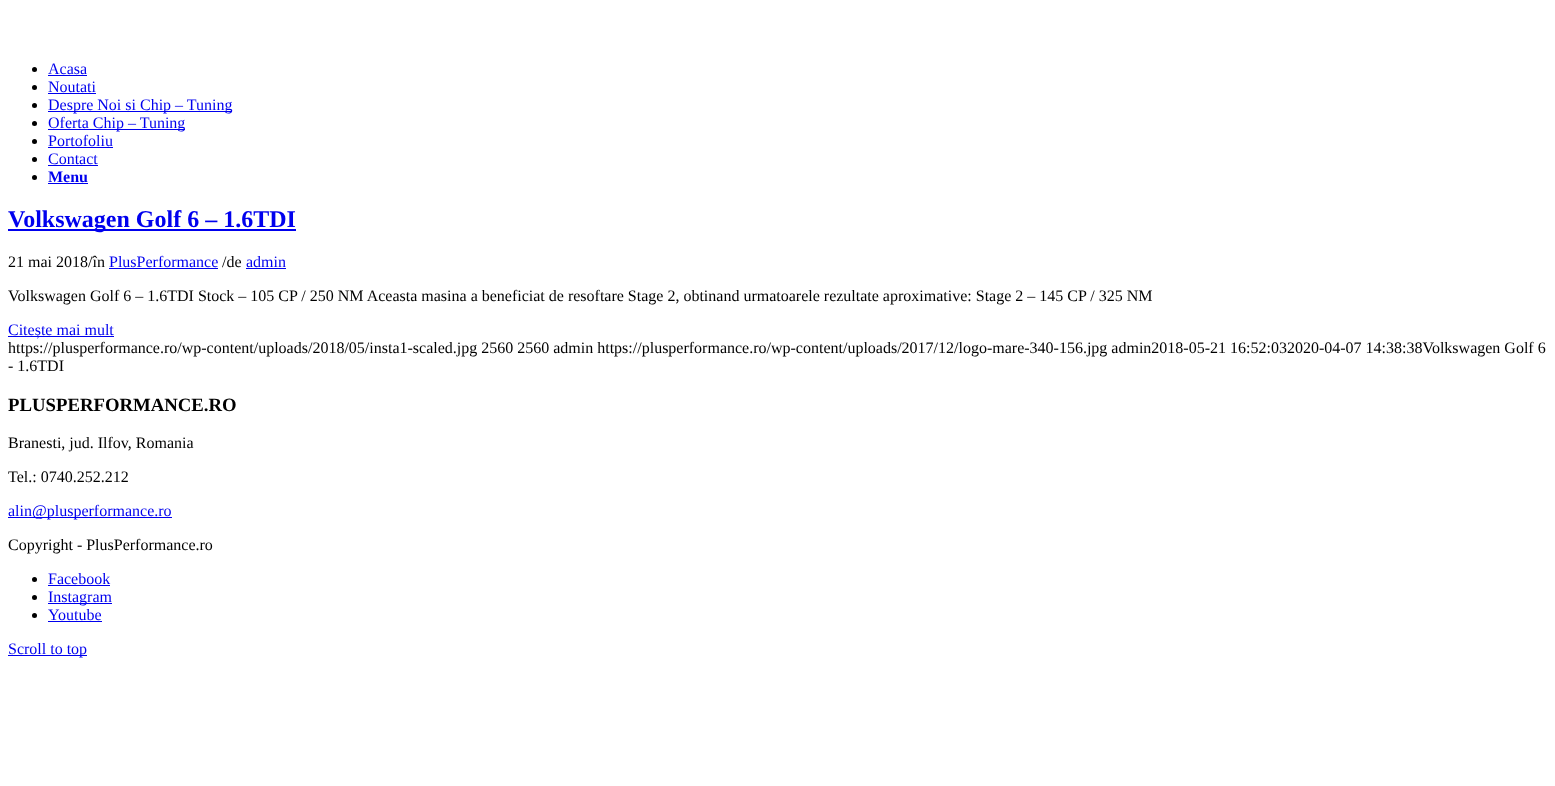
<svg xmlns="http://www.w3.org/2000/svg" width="1555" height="786">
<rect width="100%" height="100%" fill="#fff"/>
<circle cx="34.5" cy="69.5" r="2.5" fill="#000"/>
<text x="48" y="74" style="font-family:Liberation Serif;font-size:16px;fill:#00e">Acasa</text>
<rect x="48" y="75" width="39" height="1" fill="#00e"/>
<circle cx="34.5" cy="87.5" r="2.5" fill="#000"/>
<text x="48" y="92" style="font-family:Liberation Serif;font-size:16px;fill:#00e">Noutati</text>
<rect x="48" y="93" width="48" height="1" fill="#00e"/>
<circle cx="34.5" cy="105.5" r="2.5" fill="#000"/>
<rect x="48" y="111" width="184" height="1" fill="#00e"/>
<text x="48" y="110" style="font-family:Liberation Serif;font-size:16px;fill:#00e">Despre Noi si Chip – Tuning</text>
<circle cx="34.5" cy="123.5" r="2.5" fill="#000"/>
<rect x="48" y="129" width="137" height="1" fill="#00e"/>
<text x="48" y="128" style="font-family:Liberation Serif;font-size:16px;fill:#00e">Oferta Chip – Tuning</text>
<circle cx="34.5" cy="141.5" r="2.5" fill="#000"/>
<text x="48" y="146" style="font-family:Liberation Serif;font-size:16px;fill:#00e">Portofoliu</text>
<rect x="48" y="147" width="65" height="1" fill="#00e"/>
<circle cx="34.5" cy="159.5" r="2.5" fill="#000"/>
<text x="48" y="164" style="font-family:Liberation Serif;font-size:16px;fill:#00e">Contact</text>
<rect x="48" y="165" width="50" height="1" fill="#00e"/>
<circle cx="34.5" cy="177.5" r="2.5" fill="#000"/>
<text x="48" y="182" style="font-family:Liberation Serif;font-size:16px;font-weight:bold;fill:#00e">Menu</text>
<rect x="48" y="183" width="40" height="1" fill="#00e"/>
<rect x="8" y="229" width="288" height="2" fill="#00e"/>
<text x="8" y="227" style="font-family:Liberation Serif;font-size:24px;font-weight:bold;fill:#00e">Volkswagen Golf 6 – 1.6TDI</text>
<text x="8" y="267" style="font-family:Liberation Serif;font-size:16px;fill:#000">21 mai 2018/în</text>
<text x="109" y="267" style="font-family:Liberation Serif;font-size:16px;fill:#00e">PlusPerformance</text>
<rect x="109" y="268" width="109" height="1" fill="#00e"/>
<text x="222" y="267" style="font-family:Liberation Serif;font-size:16px;fill:#000">/de</text>
<text x="246" y="267" style="font-family:Liberation Serif;font-size:16px;fill:#00e">admin</text>
<rect x="246" y="268" width="40" height="1" fill="#00e"/>
<text x="8" y="301" style="font-family:Liberation Serif;font-size:16px;fill:#000">Volkswagen Golf 6 – 1.6TDI Stock – 105 CP / 250 NM Aceasta masina a beneficiat de resoftare Stage 2, obtinand urmatoarele rezultate aproximative: Stage 2 – 145 CP / 325 NM</text>
<rect x="8" y="336" width="106" height="1" fill="#00e"/>
<text x="8" y="335" style="font-family:Liberation Serif;font-size:16px;fill:#00e">Citește mai mult</text>
<text x="8" y="353" style="font-family:Liberation Serif;font-size:16px;fill:#000">https://plusperformance.ro/wp-content/uploads/2018/05/insta1-scaled.jpg 2560 2560 admin https://plusperformance.ro/wp-content/uploads/2017/12/logo-mare-340-156.jpg admin2018-05-21 16:52:032020-04-07 14:38:38Volkswagen Golf 6</text>
<text x="8" y="371" style="font-family:Liberation Serif;font-size:16px;fill:#000">- 1.6TDI</text>
<text x="8" y="411" style="font-family:Liberation Serif;font-size:18.75px;font-weight:bold;fill:#000">PLUSPERFORMANCE.RO</text>
<text x="8" y="448" style="font-family:Liberation Serif;font-size:16px;fill:#000">Branesti, jud. Ilfov, Romania</text>
<text x="8" y="482" style="font-family:Liberation Serif;font-size:16px;fill:#000">Tel.: 0740.252.212</text>
<rect x="8" y="517" width="164" height="1" fill="#00e"/>
<text x="8" y="516" style="font-family:Liberation Serif;font-size:16px;fill:#00e">alin@plusperformance.ro</text>
<text x="8" y="550" style="font-family:Liberation Serif;font-size:16px;fill:#000">Copyright - PlusPerformance.ro</text>
<circle cx="34.5" cy="579.5" r="2.5" fill="#000"/>
<text x="48" y="584" style="font-family:Liberation Serif;font-size:16px;fill:#00e">Facebook</text>
<rect x="48" y="585" width="62" height="1" fill="#00e"/>
<circle cx="34.5" cy="597.5" r="2.5" fill="#000"/>
<rect x="48" y="603" width="64" height="1" fill="#00e"/>
<text x="48" y="602" style="font-family:Liberation Serif;font-size:16px;fill:#00e">Instagram</text>
<circle cx="34.5" cy="615.5" r="2.5" fill="#000"/>
<text x="48" y="620" style="font-family:Liberation Serif;font-size:16px;fill:#00e">Youtube</text>
<rect x="48" y="621" width="54" height="1" fill="#00e"/>
<rect x="8" y="655" width="79" height="1" fill="#00e"/>
<text x="8" y="654" style="font-family:Liberation Serif;font-size:16px;fill:#00e">Scroll to top</text>
</svg>
